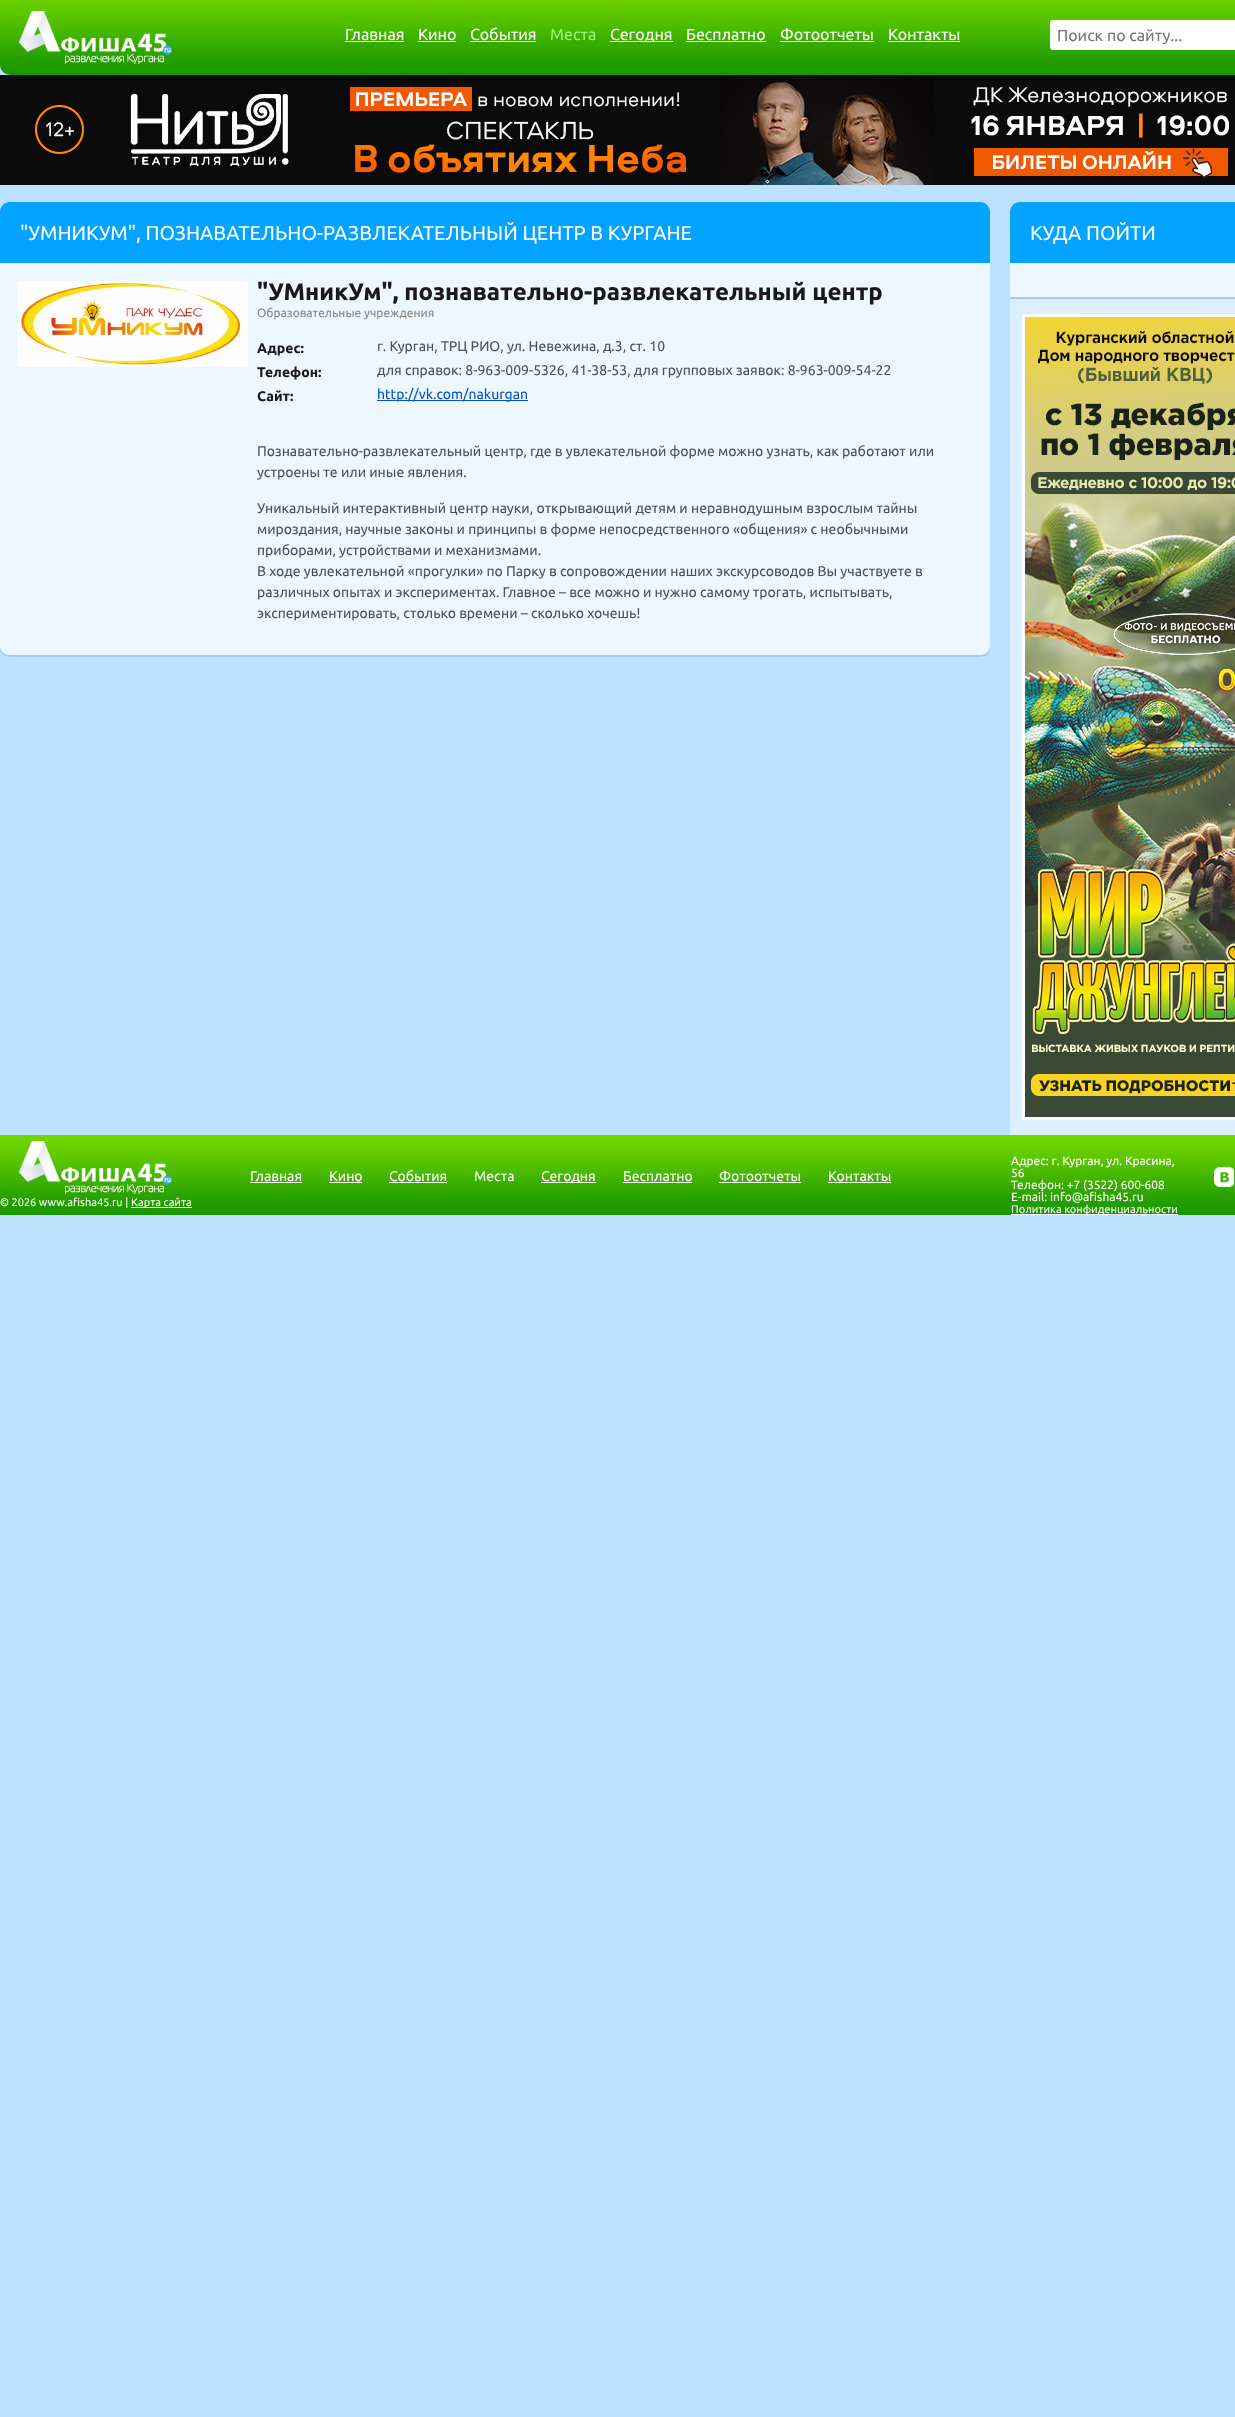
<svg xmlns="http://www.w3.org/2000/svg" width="1235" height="2417">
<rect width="100%" height="100%" fill="#bde2ff"/>
<image x="0" y="0" width="1235" height="75" href="media/1.png"/>
<image x="19" y="11" width="153" height="53" href="media/2.png"/>
<text x="345" y="40" style="font-family:Ubuntu;font-size:16px;fill:#fff">Главная</text>
<rect x="345" y="41" width="59" height="1" fill="#fff"/>
<text x="418" y="40" style="font-family:Ubuntu;font-size:16px;fill:#fff">Кино</text>
<rect x="418" y="41" width="38" height="1" fill="#fff"/>
<text x="470" y="40" style="font-family:Ubuntu;font-size:16px;fill:#fff">События</text>
<rect x="470" y="41" width="66" height="1" fill="#fff"/>
<text x="550" y="40" style="font-family:Ubuntu;font-size:16px;fill:#97f979">Места</text>
<rect x="610" y="41" width="63" height="1" fill="#fff"/>
<text x="610" y="40" style="font-family:Ubuntu;font-size:16px;fill:#fff">Сегодня</text>
<text x="686" y="40" style="font-family:Ubuntu;font-size:16px;fill:#fff">Бесплатно</text>
<rect x="686" y="41" width="80" height="1" fill="#fff"/>
<text x="780" y="40" style="font-family:Ubuntu;font-size:16px;fill:#fff">Фотоотчеты</text>
<rect x="780" y="41" width="94" height="1" fill="#fff"/>
<text x="888" y="40" style="font-family:Ubuntu;font-size:16px;fill:#fff">Контакты</text>
<rect x="888" y="41" width="72" height="1" fill="#fff"/>
<rect x="1050" y="20" width="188" height="30" rx="3" fill="#fff"/>
<text x="1057" y="41" style="font-family:Ubuntu;font-size:16px;fill:#757575">Поиск по сайту...</text>
<image x="0" y="75" width="1235" height="110" href="media/3.png"/>
<path d="M10 202h970c5.5 0 10 4.5 10 10v51h-990v-51c0-5.5 4.5-10 10-10z" fill="#03a3ff"/>
<text x="20" y="240" style="font-family:Ubuntu;font-size:20px;fill:#fff">"УМНИКУМ", ПОЗНАВАТЕЛЬНО-РАЗВЛЕКАТЕЛЬНЫЙ ЦЕНТР В КУРГАНЕ</text>
<path d="M0 263h990v384c0 5.5-4.5 10-10 10h-970c-5.5 0-10-4.5-10-10z" fill="#edf7ff"/>
<path d="M0 645v2c0 6 4 10 10 10h970c6 0 10-4 10-10v-2c0 6-4 10-10 10h-970c-6 0-10-4-10-10z" fill="#a6cbe8"/>
<image x="18" y="281" width="230" height="86" href="media/4.png"/>
<text x="257" y="300" style="font-family:Ubuntu;font-size:24px;font-weight:bold;fill:#19191a">"УМникУм", познавательно-развлекательный центр</text>
<text x="257" y="317" style="font-family:Ubuntu;font-size:12px;fill:#858585">Образовательные учреждения</text>
<text x="257" y="353" style="font-family:Ubuntu;font-size:14px;font-weight:bold;fill:#19191a">Адрес:</text>
<text x="377" y="351" style="font-family:Ubuntu;font-size:14px;fill:#4c5159">г. Курган, ТРЦ РИО, ул. Невежина, д.3, ст. 10</text>
<text x="257" y="377" style="font-family:Ubuntu;font-size:14px;font-weight:bold;fill:#19191a">Телефон:</text>
<text x="377" y="375" style="font-family:Ubuntu;font-size:14px;fill:#4c5159">для справок: 8-963-009-5326, 41-38-53, для групповых заявок: 8-963-009-54-22</text>
<text x="257" y="401" style="font-family:Ubuntu;font-size:14px;font-weight:bold;fill:#19191a">Сайт:</text>
<rect x="377" y="400" width="151" height="1" fill="#0853c5"/>
<text x="377" y="399" style="font-family:Ubuntu;font-size:14px;fill:#0853c5">http://vk.com/nakurgan</text>
<text x="257" y="456" style="font-family:Ubuntu;font-size:14px;fill:#4c5159">Познавательно-развлекательный центр, где в увлекательной форме можно узнать, как работают или</text>
<text x="257" y="477" style="font-family:Ubuntu;font-size:14px;fill:#4c5159">устроены те или иные явления.</text>
<text x="257" y="513" style="font-family:Ubuntu;font-size:14px;fill:#4c5159">Уникальный интерактивный центр науки, открывающий детям и неравнодушным взрослым тайны</text>
<text x="257" y="534" style="font-family:Ubuntu;font-size:14px;fill:#4c5159">мироздания, научные законы и принципы в форме непосредственного «общения» с необычными</text>
<text x="257" y="555" style="font-family:Ubuntu;font-size:14px;fill:#4c5159">приборами, устройствами и механизмами.</text>
<text x="257" y="576" style="font-family:Ubuntu;font-size:14px;fill:#4c5159">В ходе увлекательной «прогулки» по Парку в сопровождении наших экскурсоводов Вы участвуете в</text>
<text x="257" y="597" style="font-family:Ubuntu;font-size:14px;fill:#4c5159">различных опытах и экспериментах. Главное – все можно и нужно самому трогать, испытывать,</text>
<text x="257" y="618" style="font-family:Ubuntu;font-size:14px;fill:#4c5159">экспериментировать, столько времени – сколько хочешь!</text>
<path d="M1020 202h215c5.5 0 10 4.5 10 10v51h-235v-51c0-5.5 4.5-10 10-10z" fill="#03a3ff"/>
<text x="1030" y="240" style="font-family:Ubuntu;font-size:20px;fill:#fff">КУДА ПОЙТИ</text>
<rect x="1010" y="263" width="225" height="34" fill="#edf7ff"/>
<rect x="1010" y="297" width="225" height="2" fill="#a6cbe8"/>
<rect x="1010" y="299" width="225" height="836" fill="#daefff"/>
<rect x="1023.5" y="315.5" width="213" height="803" fill="none" stroke="#fff" stroke-width="3"/>
<image x="1025" y="317" width="210" height="800" href="media/5.png"/>
<image x="0" y="1135" width="1235" height="80" href="media/6.png"/>
<text x="250" y="1181" style="font-family:Ubuntu;font-size:14px;fill:#fff">Главная</text>
<rect x="250" y="1182" width="52" height="1" fill="#fff"/>
<text x="329" y="1181" style="font-family:Ubuntu;font-size:14px;fill:#fff">Кино</text>
<rect x="329" y="1182" width="33" height="1" fill="#fff"/>
<text x="389" y="1181" style="font-family:Ubuntu;font-size:14px;fill:#fff">События</text>
<rect x="389" y="1182" width="58" height="1" fill="#fff"/>
<text x="474" y="1181" style="font-family:Ubuntu;font-size:14px;fill:#fff">Места</text>
<rect x="541" y="1182" width="55" height="1" fill="#fff"/>
<text x="541" y="1181" style="font-family:Ubuntu;font-size:14px;fill:#fff">Сегодня</text>
<text x="623" y="1181" style="font-family:Ubuntu;font-size:14px;fill:#fff">Бесплатно</text>
<rect x="623" y="1182" width="69" height="1" fill="#fff"/>
<text x="719" y="1181" style="font-family:Ubuntu;font-size:14px;fill:#fff">Фотоотчеты</text>
<rect x="719" y="1182" width="82" height="1" fill="#fff"/>
<text x="828" y="1181" style="font-family:Ubuntu;font-size:14px;fill:#fff">Контакты</text>
<rect x="828" y="1182" width="63" height="1" fill="#fff"/>
<text x="1011" y="1165" style="font-family:Ubuntu;font-size:12px;fill:#fff">Адрес: г. Курган, ул. Красина,</text>
<text x="1011" y="1177" style="font-family:Ubuntu;font-size:12px;fill:#fff">56</text>
<text x="1011" y="1189" style="font-family:Ubuntu;font-size:12px;fill:#fff">Телефон: +7 (3522) 600-608</text>
<text x="1011" y="1201" style="font-family:Ubuntu;font-size:12px;fill:#fff">E-mail: info@afisha45.ru</text>
<rect x="1011" y="1214" width="167" height="1" fill="#fff"/>
<text x="1011" y="1213" style="font-family:Ubuntu;font-size:11px;fill:#fff">Политика конфиденциальности</text>
<image x="1214" y="1167" width="20" height="20" href="media/7.png"/>
<image x="19" y="1141" width="153" height="53" href="media/8.png"/>
<text x="0" y="1206" style="font-family:Ubuntu;font-size:11px;fill:#fff">© 2026 www.afisha45.ru |</text>
<rect x="131" y="1207" width="61" height="1" fill="#fff"/>
<text x="131" y="1206" style="font-family:Ubuntu;font-size:11px;fill:#fff">Карта сайта</text>
</svg>
